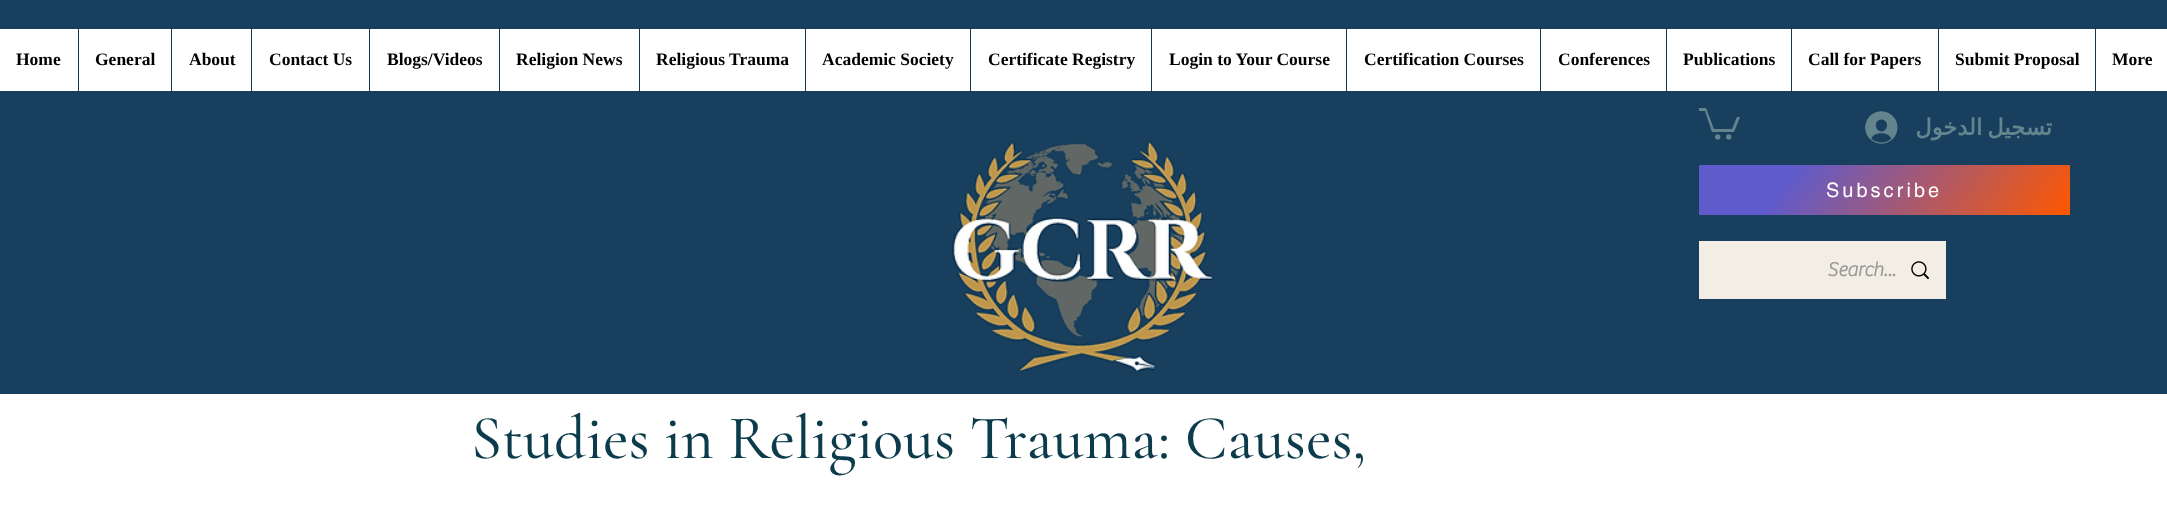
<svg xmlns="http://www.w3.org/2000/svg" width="2167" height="507">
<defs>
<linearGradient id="g1" gradientUnits="userSpaceOnUse" x1="1751" y1="93" x2="2018" y2="287"><stop offset="0.24" stop-color="#5f5bcd"/><stop offset="1" stop-color="#ff5700"/></linearGradient>
</defs>
<rect width="100%" height="100%" fill="#fff"/>
<rect width="2167" height="394" fill="#183f5e"/>
<rect y="29" width="2167" height="62" fill="#fff"/>
<text x="16" y="65" style="font-family:Liberation Serif;font-size:17.5px;font-weight:bold;fill:#000">Home</text>
<rect x="78" y="29" width="1" height="62" fill="#0c3c4c"/>
<text x="95" y="65" style="font-family:Liberation Serif;font-size:17.5px;font-weight:bold;fill:#000">General</text>
<rect x="171" y="29" width="1" height="62" fill="#0c3c4c"/>
<text x="189" y="65" style="font-family:Liberation Serif;font-size:17.5px;font-weight:bold;fill:#000">About</text>
<rect x="251" y="29" width="1" height="62" fill="#0c3c4c"/>
<text x="269" y="65" style="font-family:Liberation Serif;font-size:17.5px;font-weight:bold;fill:#000">Contact Us</text>
<rect x="369" y="29" width="1" height="62" fill="#0c3c4c"/>
<text x="387" y="65" style="font-family:Liberation Serif;font-size:17.5px;font-weight:bold;fill:#000">Blogs/Videos</text>
<rect x="499" y="29" width="1" height="62" fill="#0c3c4c"/>
<text x="516" y="65" style="font-family:Liberation Serif;font-size:17.5px;font-weight:bold;fill:#000">Religion News</text>
<rect x="639" y="29" width="1" height="62" fill="#0c3c4c"/>
<text x="656" y="65" style="font-family:Liberation Serif;font-size:17.5px;font-weight:bold;fill:#000">Religious Trauma</text>
<rect x="805" y="29" width="1" height="62" fill="#0c3c4c"/>
<text x="822" y="65" style="font-family:Liberation Serif;font-size:17.5px;font-weight:bold;fill:#000">Academic Society</text>
<rect x="970" y="29" width="1" height="62" fill="#0c3c4c"/>
<text x="988" y="65" style="font-family:Liberation Serif;font-size:17.5px;font-weight:bold;fill:#000">Certificate Registry</text>
<rect x="1151" y="29" width="1" height="62" fill="#0c3c4c"/>
<text x="1169" y="65" style="font-family:Liberation Serif;font-size:17.5px;font-weight:bold;fill:#000">Login to Your Course</text>
<rect x="1346" y="29" width="1" height="62" fill="#0c3c4c"/>
<text x="1364" y="65" style="font-family:Liberation Serif;font-size:17.5px;font-weight:bold;fill:#000">Certification Courses</text>
<rect x="1540" y="29" width="1" height="62" fill="#0c3c4c"/>
<text x="1558" y="65" style="font-family:Liberation Serif;font-size:17.5px;font-weight:bold;fill:#000">Conferences</text>
<rect x="1666" y="29" width="1" height="62" fill="#0c3c4c"/>
<text x="1683" y="65" style="font-family:Liberation Serif;font-size:17.5px;font-weight:bold;fill:#000">Publications</text>
<rect x="1791" y="29" width="1" height="62" fill="#0c3c4c"/>
<text x="1808" y="65" style="font-family:Liberation Serif;font-size:17.5px;font-weight:bold;fill:#000">Call for Papers</text>
<rect x="1938" y="29" width="1" height="62" fill="#0c3c4c"/>
<text x="1955" y="65" style="font-family:Liberation Serif;font-size:17.5px;font-weight:bold;fill:#000">Submit Proposal</text>
<rect x="2095" y="29" width="1" height="62" fill="#0c3c4c"/>
<text x="2112" y="65" style="font-family:Liberation Serif;font-size:17.5px;font-weight:bold;fill:#000">More</text>
<path d="M1740 117l-6 15h-22l-7-21h-6v-3h7l8 21h18l5-12" fill="#64858e"/>
<circle cx="1728.7" cy="136.9" r="2.7" fill="#64858e"/>
<circle cx="1717.7" cy="136.9" r="2.7" fill="#64858e"/>
<image x="1865" y="111" width="33" height="33" href="media/1.png"/>
<text x="2052" y="135" word-spacing="-2" style="font-family:DejaVu Sans;font-size:22.5px;font-weight:bold;direction:rtl;fill:#64858e">تسجيل الدخول</text>
<image x="952" y="141" width="262" height="232" href="media/2.png"/>
<rect x="1699" y="165" width="371" height="50" fill="url(#g1)"/>
<text x="1826" y="197" style="font-family:helvetica;font-size:20px;letter-spacing:3px;fill:#fff">Subscribe</text>
<rect x="1699" y="241" width="247" height="58" fill="#f2eee4"/>
<text x="1827" y="276" style="font-family:'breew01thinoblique';font-size:20px;font-weight:bold;fill:#999">Search...</text>
<image x="1911" y="261" width="18" height="18" href="media/3.png"/>
<text x="471" y="458" style="font-family:Cormorant Garamond;font-size:62.5px;font-weight:500;fill:#0c3c4c">Studies in Religious Trauma: Causes,</text>
</svg>
